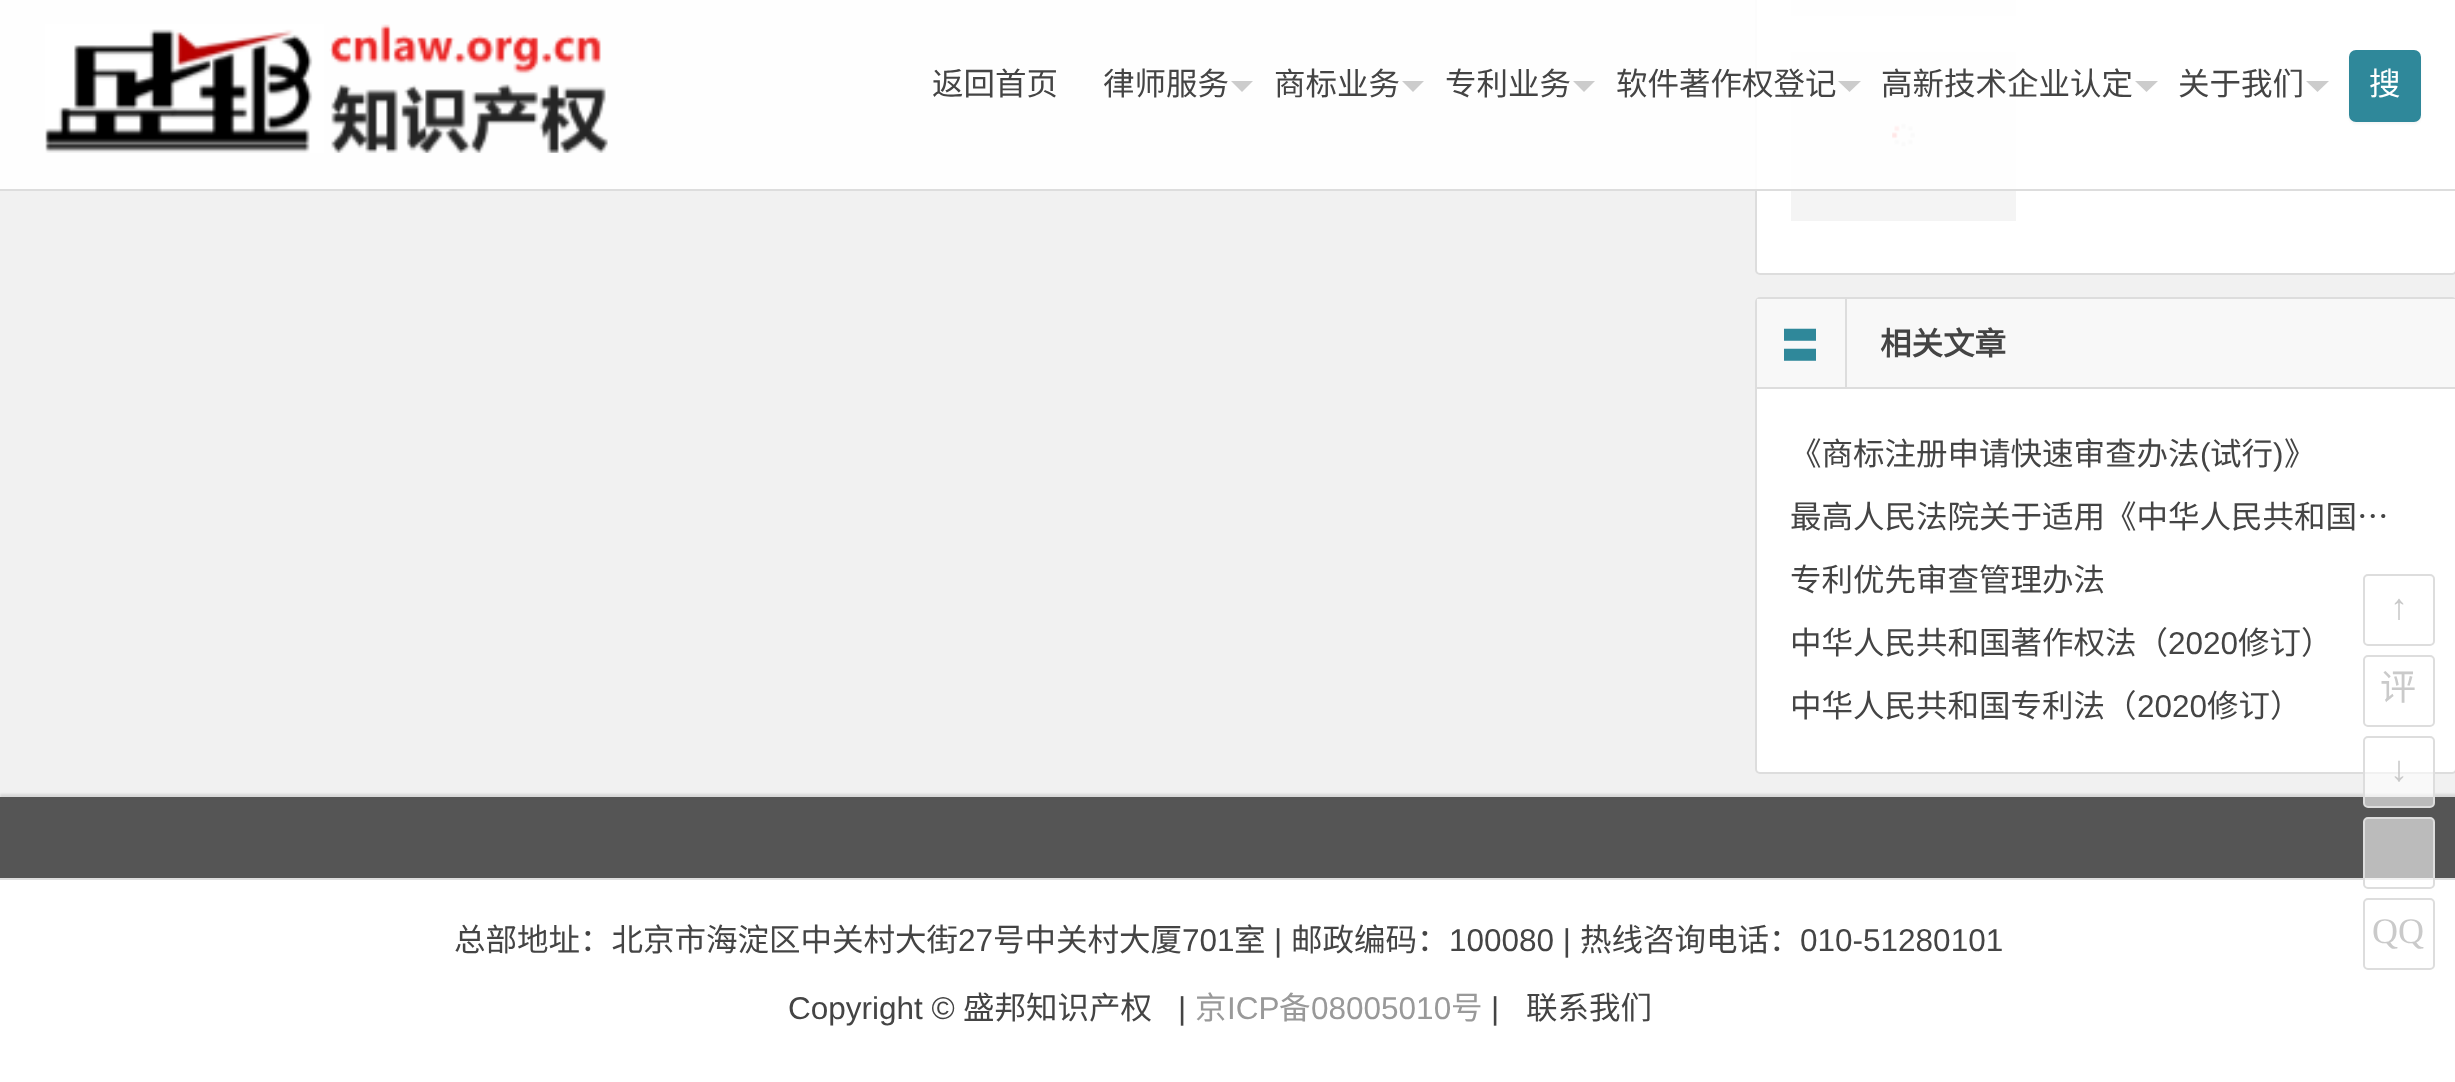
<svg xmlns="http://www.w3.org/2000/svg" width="2455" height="1082">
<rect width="100%" height="100%" fill="#f1f1f1"/>
<rect x="1756" y="-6" width="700" height="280" rx="4" fill="#fff" stroke="#ddd" stroke-width="2"/>
<rect x="1791" width="225" height="16" fill="#f4f4f4"/>
<rect x="1791" y="52" width="225" height="169" fill="#f4f4f4"/>
<image x="1892" y="123" width="23" height="24" href="media/2.png"/>
<rect width="2016" height="189" fill="#ffffffe6"/>
<rect y="189" width="2455" height="2" fill="#ddd"/>
<image x="45" y="24" width="563" height="129" href="media/1.png"/>
<text x="932" y="95" style="font-family:Noto Sans CJK SC;font-size:31.5px;fill:#444">返回首页</text>
<text x="1103" y="95" style="font-family:Noto Sans CJK SC;font-size:31.5px;fill:#444">律师服务</text>
<path d="M1231 81h22l-11 11z" fill="#ccc"/>
<text x="1274" y="95" style="font-family:Noto Sans CJK SC;font-size:31.5px;fill:#444">商标业务</text>
<path d="M1402 81h22l-11 11z" fill="#ccc"/>
<text x="1445" y="95" style="font-family:Noto Sans CJK SC;font-size:31.5px;fill:#444">专利业务</text>
<path d="M1573 81h22l-11 11z" fill="#ccc"/>
<text x="1616" y="95" style="font-family:Noto Sans CJK SC;font-size:31.5px;fill:#444">软件著作权登记</text>
<path d="M1838 81h23l-11.5 11z" fill="#ccc"/>
<text x="1881" y="95" style="font-family:Noto Sans CJK SC;font-size:31.5px;fill:#444">高新技术企业认定</text>
<path d="M2135 81h23l-11.5 11z" fill="#ccc"/>
<text x="2178" y="95" style="font-family:Noto Sans CJK SC;font-size:31.5px;fill:#444">关于我们</text>
<path d="M2306 81h23l-11.5 11z" fill="#ccc"/>
<rect x="2349" y="52" width="72" height="72" rx="7" fill="#0000000a" filter="blur(1px)"/>
<rect x="2350" y="51" width="70" height="70" rx="6" fill="#2f889a" stroke="#2f889a" stroke-width="2"/>
<text x="2369" y="95" style="font-family:Noto Sans CJK SC;font-size:31.5px;fill:#fff">搜</text>
<rect x="1756" y="298" width="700" height="475" rx="4" fill="#fff" stroke="#ddd" stroke-width="2"/>
<rect x="1757" y="299" width="698" height="88" fill="#f8f8f8"/>
<rect x="1757" y="387" width="698" height="2" fill="#ddd"/>
<rect x="1845" y="299" width="2" height="90" fill="#ddd"/>
<text x="1780" y="360" style="font-family:Noto Sans CJK SC;font-size:40px;fill:#2f889a">〓</text>
<text x="1880" y="355" style="font-family:Noto Sans CJK SC;font-size:31.5px;font-weight:bold;fill:#444">相关文章</text>
<text x="1790" y="465" style="font-family:Noto Sans CJK SC;font-size:31.5px;fill:#444">《商标注册申请快速审查办法</text>
<text x="2200" y="465" style="font-family:Liberation Sans;font-size:31.5px;fill:#444">(</text>
<text x="2210" y="465" style="font-family:Noto Sans CJK SC;font-size:31.5px;fill:#444">试行</text>
<text x="2273" y="465" style="font-family:Liberation Sans;font-size:31.5px;fill:#444">)</text>
<text x="2284" y="465" style="font-family:Noto Sans CJK SC;font-size:31.5px;fill:#444">》</text>
<text x="1790" y="528" style="font-family:Noto Sans CJK SC;font-size:31.5px;fill:#444">最高人民法院关于适用《中华人民共和国…</text>
<text x="1790" y="591" style="font-family:Noto Sans CJK SC;font-size:31.5px;fill:#444">专利优先审查管理办法</text>
<text x="1790" y="654" style="font-family:Noto Sans CJK SC;font-size:31.5px;fill:#444">中华人民共和国著作权法（</text>
<text x="2168" y="654" style="font-family:Liberation Sans;font-size:31.5px;fill:#444">2020</text>
<text x="2238" y="654" style="font-family:Noto Sans CJK SC;font-size:31.5px;fill:#444">修订）</text>
<text x="1790" y="717" style="font-family:Noto Sans CJK SC;font-size:31.5px;fill:#444">中华人民共和国专利法（</text>
<text x="2137" y="717" style="font-family:Liberation Sans;font-size:31.5px;fill:#444">2020</text>
<text x="2207" y="717" style="font-family:Noto Sans CJK SC;font-size:31.5px;fill:#444">修订）</text>
<rect x="2364" y="575" width="70" height="70" rx="4" fill="none" stroke="#ddd" stroke-width="2"/>
<text x="2390" y="619" style="font-family:Liberation Serif;font-size:36px;fill:#cacaca">↑</text>
<rect x="2364" y="656" width="70" height="70" rx="4" fill="none" stroke="#ddd" stroke-width="2"/>
<text x="2380" y="700" style="font-family:Noto Sans CJK SC;font-size:36px;fill:#cacaca">评</text>
<rect y="794" width="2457" height="81" fill="#0000001a" filter="blur(1px)"/>
<rect y="797" width="2455" height="81" fill="#555"/>
<rect x="2364" y="737" width="70" height="70" rx="4" fill="#ffffff99" stroke="#ddd" stroke-width="2"/>
<text x="2390" y="781" style="font-family:Liberation Serif;font-size:36px;fill:#cacaca">↓</text>
<rect y="880" width="2455" height="202" fill="#fff"/>
<rect y="878" width="2455" height="2" fill="#ddd"/>
<rect x="2364" y="818" width="70" height="70" rx="4" fill="#ffffff99" stroke="#ddd" stroke-width="2"/>
<rect x="2364" y="899" width="70" height="70" rx="4" fill="none" stroke="#ddd" stroke-width="2"/>
<text x="2372" y="943" style="font-family:Liberation Serif;font-size:36px;fill:#cacaca">QQ</text>
<text x="454" y="951" style="font-family:Noto Sans CJK SC;font-size:31.5px;fill:#444">总部地址：北京市海淀区中关村大街</text>
<text x="958" y="951" style="font-family:Liberation Sans;font-size:31.5px;fill:#444">27</text>
<text x="993" y="951" style="font-family:Noto Sans CJK SC;font-size:31.5px;fill:#444">号中关村大厦</text>
<text x="1182" y="951" style="font-family:Liberation Sans;font-size:31.5px;fill:#444">701</text>
<text x="1234" y="951" style="font-family:Noto Sans CJK SC;font-size:31.5px;fill:#444">室</text>
<text x="1274" y="951" style="font-family:Liberation Sans;font-size:31.5px;fill:#444">|</text>
<text x="1291" y="951" style="font-family:Noto Sans CJK SC;font-size:31.5px;fill:#444">邮政编码：</text>
<text x="1449" y="951" style="font-family:Liberation Sans;font-size:31.5px;fill:#444">100080 |</text>
<text x="1580" y="951" style="font-family:Noto Sans CJK SC;font-size:31.5px;fill:#444">热线咨询电话：</text>
<text x="1800" y="951" style="font-family:Liberation Sans;font-size:31.5px;fill:#444">010-51280101</text>
<text x="788" y="1019" style="font-family:Liberation Sans;font-size:31.5px;fill:#444">Copyright ©</text>
<text x="963" y="1019" style="font-family:Noto Sans CJK SC;font-size:31.5px;fill:#444">盛邦知识产权</text>
<text x="1178" y="1019" style="font-family:Liberation Sans;font-size:31.5px;fill:#444">|</text>
<text x="1195" y="1019" style="font-family:Noto Sans CJK SC;font-size:31.5px;fill:#999">京</text>
<text x="1227" y="1019" style="font-family:Liberation Sans;font-size:31.5px;fill:#999">ICP</text>
<text x="1279" y="1019" style="font-family:Noto Sans CJK SC;font-size:31.5px;fill:#999">备</text>
<text x="1311" y="1019" style="font-family:Liberation Sans;font-size:31.5px;fill:#999">08005010</text>
<text x="1451" y="1019" style="font-family:Noto Sans CJK SC;font-size:31.5px;fill:#999">号</text>
<text x="1491" y="1019" style="font-family:Liberation Sans;font-size:31.5px;fill:#444">|</text>
<text x="1526" y="1019" style="font-family:Noto Sans CJK SC;font-size:31.5px;fill:#444">联系我们</text>
</svg>
